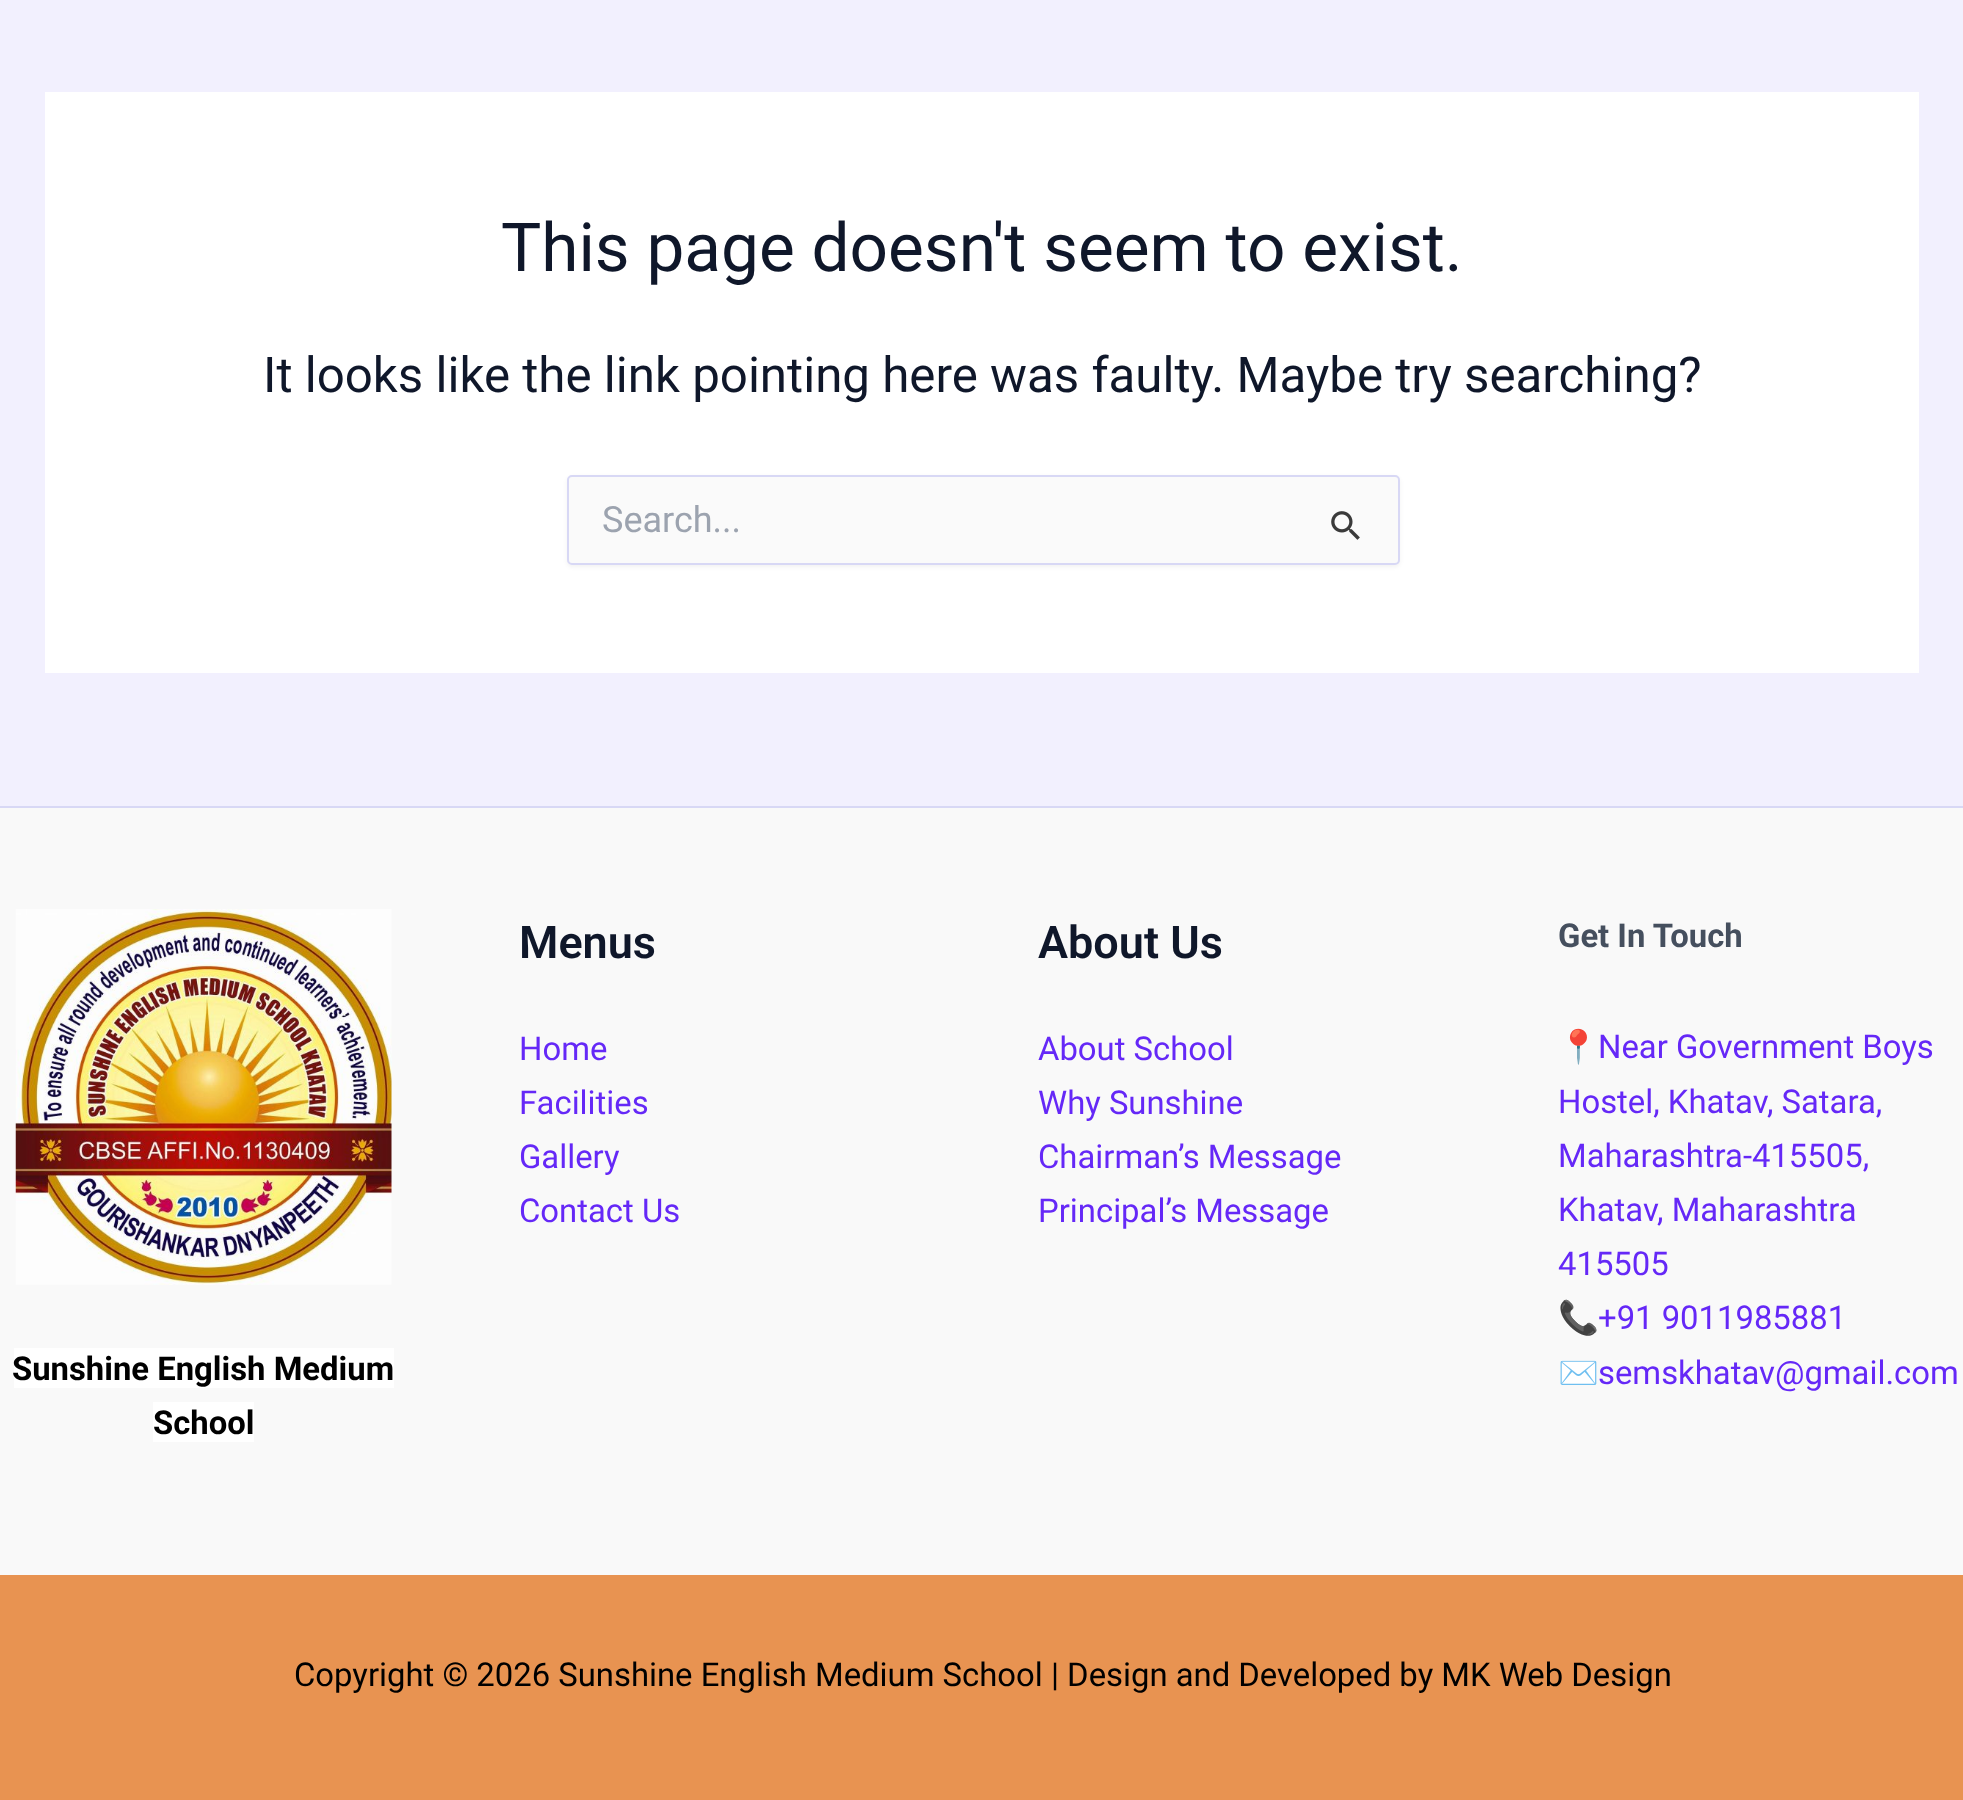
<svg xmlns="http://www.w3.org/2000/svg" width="1963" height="1800">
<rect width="100%" height="100%" fill="#f2f0fe"/>
<rect x="45" y="92" width="1874" height="581" fill="#fff"/>
<text x="501" y="271" style="font-family:Roboto;font-size:67.5px;fill:#0f172a">This page doesn't seem to exist.</text>
<text x="263" y="392" style="font-family:Roboto;font-size:49.25px;fill:#0f172a">It looks like the link pointing here was faulty. Maybe try searching?</text>
<rect x="567" y="477" width="833" height="90" rx="5" fill="#0000000d" filter="blur(2px)"/>
<rect x="568" y="476" width="831" height="88" rx="4" fill="#fafafa" stroke="#d8d8f5" stroke-width="2"/>
<text x="602" y="532" style="font-family:Roboto;font-size:36px;fill:#9ca3af">Search...</text>
<image x="1331" y="511" width="29" height="29" href="media/1.png"/>
<rect y="808" width="1963" height="767" fill="#f9f9f9"/>
<rect y="806" width="1963" height="2" fill="#d8d8f5"/>
<text x="519" y="958" style="font-family:Roboto;font-size:45px;font-weight:600;fill:#0f172a">Menus</text>
<text x="519" y="1060" style="font-family:Roboto;font-size:32.85px;fill:#6528f7">Home</text>
<text x="519" y="1114" style="font-family:Roboto;font-size:32.85px;fill:#6528f7">Facilities</text>
<text x="519" y="1168" style="font-family:Roboto;font-size:32.85px;fill:#6528f7">Gallery</text>
<text x="519" y="1222" style="font-family:Roboto;font-size:32.85px;fill:#6528f7">Contact Us</text>
<text x="1038" y="958" style="font-family:Roboto;font-size:45px;font-weight:600;fill:#0f172a">About Us</text>
<text x="1038" y="1060" style="font-family:Roboto;font-size:32.85px;fill:#6528f7">About School</text>
<text x="1038" y="1114" style="font-family:Roboto;font-size:32.85px;fill:#6528f7">Why Sunshine</text>
<text x="1038" y="1168" style="font-family:Roboto;font-size:32.85px;fill:#6528f7">Chairman’s Message</text>
<text x="1038" y="1222" style="font-family:Roboto;font-size:32.85px;fill:#6528f7">Principal’s Message</text>
<text x="1558" y="947" style="font-family:Roboto;font-size:32.85px;font-weight:bold;fill:#454f5e">Get In Touch</text>
<text x="1558" y="1058" style="font-family:Noto Color Emoji;font-size:32.85px;fill:#6528f7">📍</text>
<text x="1598" y="1058" style="font-family:Roboto;font-size:32.85px;fill:#6528f7">Near Government Boys</text>
<text x="1558" y="1113" style="font-family:Roboto;font-size:32.85px;fill:#6528f7">Hostel, Khatav, Satara,</text>
<text x="1558" y="1167" style="font-family:Roboto;font-size:32.85px;fill:#6528f7">Maharashtra-415505,</text>
<text x="1558" y="1221" style="font-family:Roboto;font-size:32.85px;fill:#6528f7">Khatav, Maharashtra</text>
<text x="1558" y="1275" style="font-family:Roboto;font-size:32.85px;fill:#6528f7">415505</text>
<text x="1558" y="1329" style="font-family:Noto Color Emoji;font-size:32.85px;fill:#6528f7">📞</text>
<text x="1598" y="1329" style="font-family:Roboto;font-size:32.85px;fill:#6528f7">+91 9011985881</text>
<text x="1558" y="1384" style="font-family:Noto Color Emoji;font-size:32.85px;fill:#6528f7">✉️</text>
<text x="1598" y="1384" style="font-family:Roboto;font-size:32.85px;fill:#6528f7">semskhatav@gmail.com</text>
<image x="15" y="909" width="377" height="376" href="media/2.png"/>
<rect x="14" y="1348" width="380" height="40" fill="#fff"/>
<text x="12" y="1380" style="font-family:Roboto;font-size:32.85px;font-weight:bold;fill:#000">Sunshine English Medium</text>
<rect x="153" y="1402" width="101" height="40" fill="#fff"/>
<text x="153" y="1434" style="font-family:Roboto;font-size:32.85px;font-weight:bold;fill:#000">School</text>
<rect y="1575" width="1963" height="225" fill="#e89351"/>
<text x="294" y="1686" style="font-family:Roboto;font-size:32.85px;fill:#000">Copyright © 2026 Sunshine English Medium School | Design and Developed by MK Web Design</text>
</svg>
